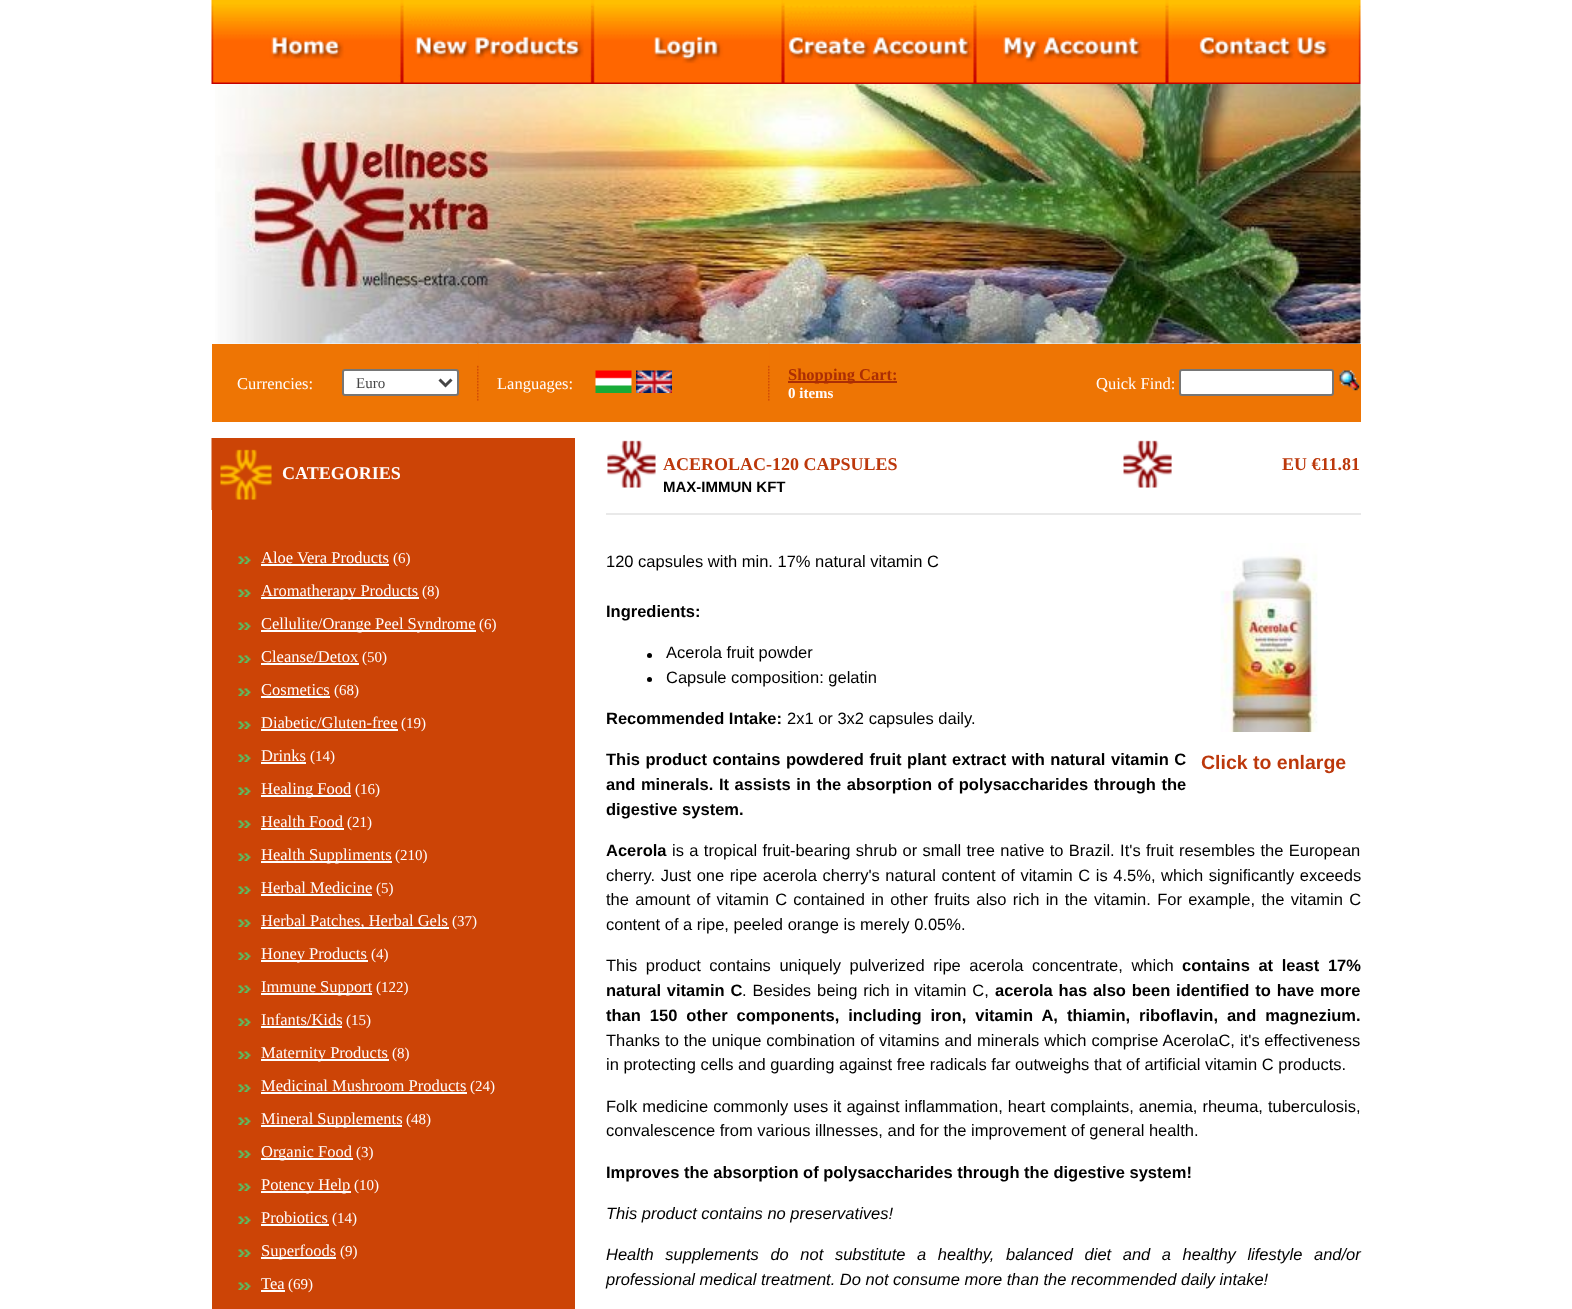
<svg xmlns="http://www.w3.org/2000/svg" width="1572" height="1309">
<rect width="100%" height="100%" fill="#fff"/>
<image x="211" y="0" width="1150" height="84" href="media/1.png"/>
<image x="215" y="84" width="1146" height="260" href="media/2.png"/>
<rect x="212" y="344" width="1149" height="78" fill="#ee7504"/>
<text x="237" y="389" style="font-family:Liberation Serif;font-size:16.5px;fill:#fffcfc">Currencies:</text>
<rect x="343" y="370" width="115" height="25" rx="2" fill="#fff" stroke="#767676" stroke-width="2"/>
<path d="M439.5 379.5l6 6l6-6" fill="none" stroke="#464646" stroke-width="3"/>
<text x="356" y="388" style="font-family:Liberation Serif;font-size:15px;fill:#464646">Euro</text>
<image x="477" y="343" width="2" height="58" href="media/3.png"/>
<text x="497" y="389" style="font-family:Liberation Serif;font-size:16.5px;fill:#fffcfc">Languages:</text>
<image x="595" y="370" width="37" height="23" href="media/4.png"/>
<image x="636" y="370" width="36" height="23" href="media/5.png"/>
<image x="768" y="343" width="2" height="58" href="media/6.png"/>
<rect x="788" y="381" width="109" height="2" fill="#ab2e05"/>
<text x="788" y="380" style="font-family:Liberation Serif;font-size:16.5px;font-weight:bold;fill:#ab2e05">Shopping Cart:</text>
<text x="788" y="398" style="font-family:Liberation Serif;font-size:15px;font-weight:bold;fill:#fffcfc">0 items</text>
<text x="1096" y="389" style="font-family:Liberation Serif;font-size:16.5px;fill:#fffcfc">Quick Find:</text>
<rect x="1180" y="370" width="153" height="25" rx="2" fill="#fff" stroke="#767676" stroke-width="2"/>
<image x="1339" y="370" width="21" height="21" href="media/7.png"/>
<rect x="272" y="438" width="303" height="72" fill="#cc4406"/>
<image x="211" y="438" width="61" height="72" href="media/8.png"/>
<text x="282" y="479" style="font-family:Liberation Serif;font-size:18px;font-weight:bold;fill:#fffcfc">CATEGORIES</text>
<rect x="212" y="510" width="363" height="799" fill="#cc4406"/>
<image x="238" y="556" width="13" height="8" href="media/9.png"/>
<text x="261" y="563" style="font-family:Liberation Serif;font-size:16.5px;fill:#fffcfc">Aloe Vera Products</text>
<rect x="261" y="564" width="128" height="2" fill="#fff"/>
<text x="393" y="563" style="font-family:Liberation Serif;font-size:15px;fill:#fffcfc">(6)</text>
<image x="238" y="589" width="13" height="8" href="media/9.png"/>
<rect x="261" y="597" width="158" height="2" fill="#fff"/>
<text x="261" y="596" style="font-family:Liberation Serif;font-size:16.5px;fill:#fffcfc">Aromatherapy Products</text>
<text x="422" y="596" style="font-family:Liberation Serif;font-size:15px;fill:#fffcfc">(8)</text>
<image x="238" y="622" width="13" height="8" href="media/9.png"/>
<rect x="261" y="630" width="215" height="2" fill="#fff"/>
<text x="261" y="629" style="font-family:Liberation Serif;font-size:16.5px;fill:#fffcfc">Cellulite/Orange Peel Syndrome</text>
<text x="479" y="629" style="font-family:Liberation Serif;font-size:15px;fill:#fffcfc">(6)</text>
<image x="238" y="655" width="13" height="8" href="media/9.png"/>
<text x="261" y="662" style="font-family:Liberation Serif;font-size:16.5px;fill:#fffcfc">Cleanse/Detox</text>
<rect x="261" y="663" width="98" height="2" fill="#fff"/>
<text x="362" y="662" style="font-family:Liberation Serif;font-size:15px;fill:#fffcfc">(50)</text>
<image x="238" y="688" width="13" height="8" href="media/9.png"/>
<text x="261" y="695" style="font-family:Liberation Serif;font-size:16.5px;fill:#fffcfc">Cosmetics</text>
<rect x="261" y="696" width="69" height="2" fill="#fff"/>
<text x="334" y="695" style="font-family:Liberation Serif;font-size:15px;fill:#fffcfc">(68)</text>
<image x="238" y="721" width="13" height="8" href="media/9.png"/>
<text x="261" y="728" style="font-family:Liberation Serif;font-size:16.5px;fill:#fffcfc">Diabetic/Gluten-free</text>
<rect x="261" y="729" width="137" height="2" fill="#fff"/>
<text x="401" y="728" style="font-family:Liberation Serif;font-size:15px;fill:#fffcfc">(19)</text>
<image x="238" y="754" width="13" height="8" href="media/9.png"/>
<text x="261" y="761" style="font-family:Liberation Serif;font-size:16.5px;fill:#fffcfc">Drinks</text>
<rect x="261" y="762" width="45" height="2" fill="#fff"/>
<text x="310" y="761" style="font-family:Liberation Serif;font-size:15px;fill:#fffcfc">(14)</text>
<image x="238" y="787" width="13" height="8" href="media/9.png"/>
<rect x="261" y="795" width="90" height="2" fill="#fff"/>
<text x="261" y="794" style="font-family:Liberation Serif;font-size:16.5px;fill:#fffcfc">Healing Food</text>
<text x="355" y="794" style="font-family:Liberation Serif;font-size:15px;fill:#fffcfc">(16)</text>
<image x="238" y="820" width="13" height="8" href="media/9.png"/>
<text x="261" y="827" style="font-family:Liberation Serif;font-size:16.5px;fill:#fffcfc">Health Food</text>
<rect x="261" y="828" width="83" height="2" fill="#fff"/>
<text x="347" y="827" style="font-family:Liberation Serif;font-size:15px;fill:#fffcfc">(21)</text>
<image x="238" y="853" width="13" height="8" href="media/9.png"/>
<rect x="261" y="861" width="131" height="2" fill="#fff"/>
<text x="261" y="860" style="font-family:Liberation Serif;font-size:16.5px;fill:#fffcfc">Health Suppliments</text>
<text x="395" y="860" style="font-family:Liberation Serif;font-size:15px;fill:#fffcfc">(210)</text>
<image x="238" y="886" width="13" height="8" href="media/9.png"/>
<text x="261" y="893" style="font-family:Liberation Serif;font-size:16.5px;fill:#fffcfc">Herbal Medicine</text>
<rect x="261" y="894" width="111" height="2" fill="#fff"/>
<text x="376" y="893" style="font-family:Liberation Serif;font-size:15px;fill:#fffcfc">(5)</text>
<image x="238" y="919" width="13" height="8" href="media/9.png"/>
<rect x="261" y="927" width="188" height="2" fill="#fff"/>
<text x="261" y="926" style="font-family:Liberation Serif;font-size:16.5px;fill:#fffcfc">Herbal Patches, Herbal Gels</text>
<text x="452" y="926" style="font-family:Liberation Serif;font-size:15px;fill:#fffcfc">(37)</text>
<image x="238" y="952" width="13" height="8" href="media/9.png"/>
<rect x="261" y="960" width="107" height="2" fill="#fff"/>
<text x="261" y="959" style="font-family:Liberation Serif;font-size:16.5px;fill:#fffcfc">Honey Products</text>
<text x="371" y="959" style="font-family:Liberation Serif;font-size:15px;fill:#fffcfc">(4)</text>
<image x="238" y="985" width="13" height="8" href="media/9.png"/>
<rect x="261" y="993" width="111" height="2" fill="#fff"/>
<text x="261" y="992" style="font-family:Liberation Serif;font-size:16.5px;fill:#fffcfc">Immune Support</text>
<text x="376" y="992" style="font-family:Liberation Serif;font-size:15px;fill:#fffcfc">(122)</text>
<image x="238" y="1018" width="13" height="8" href="media/9.png"/>
<text x="261" y="1025" style="font-family:Liberation Serif;font-size:16.5px;fill:#fffcfc">Infants/Kids</text>
<rect x="261" y="1026" width="81" height="2" fill="#fff"/>
<text x="346" y="1025" style="font-family:Liberation Serif;font-size:15px;fill:#fffcfc">(15)</text>
<image x="238" y="1051" width="13" height="8" href="media/9.png"/>
<rect x="261" y="1059" width="128" height="2" fill="#fff"/>
<text x="261" y="1058" style="font-family:Liberation Serif;font-size:16.5px;fill:#fffcfc">Maternity Products</text>
<text x="392" y="1058" style="font-family:Liberation Serif;font-size:15px;fill:#fffcfc">(8)</text>
<image x="238" y="1084" width="13" height="8" href="media/9.png"/>
<text x="261" y="1091" style="font-family:Liberation Serif;font-size:16.5px;fill:#fffcfc">Medicinal Mushroom Products</text>
<rect x="261" y="1092" width="206" height="2" fill="#fff"/>
<text x="470" y="1091" style="font-family:Liberation Serif;font-size:15px;fill:#fffcfc">(24)</text>
<image x="238" y="1117" width="13" height="8" href="media/9.png"/>
<rect x="261" y="1125" width="141" height="2" fill="#fff"/>
<text x="261" y="1124" style="font-family:Liberation Serif;font-size:16.5px;fill:#fffcfc">Mineral Supplements</text>
<text x="406" y="1124" style="font-family:Liberation Serif;font-size:15px;fill:#fffcfc">(48)</text>
<image x="238" y="1150" width="13" height="8" href="media/9.png"/>
<rect x="261" y="1158" width="92" height="2" fill="#fff"/>
<text x="261" y="1157" style="font-family:Liberation Serif;font-size:16.5px;fill:#fffcfc">Organic Food</text>
<text x="356" y="1157" style="font-family:Liberation Serif;font-size:15px;fill:#fffcfc">(3)</text>
<image x="238" y="1183" width="13" height="8" href="media/9.png"/>
<rect x="261" y="1191" width="90" height="2" fill="#fff"/>
<text x="261" y="1190" style="font-family:Liberation Serif;font-size:16.5px;fill:#fffcfc">Potency Help</text>
<text x="354" y="1190" style="font-family:Liberation Serif;font-size:15px;fill:#fffcfc">(10)</text>
<image x="238" y="1216" width="13" height="8" href="media/9.png"/>
<text x="261" y="1223" style="font-family:Liberation Serif;font-size:16.5px;fill:#fffcfc">Probiotics</text>
<rect x="261" y="1224" width="68" height="2" fill="#fff"/>
<text x="332" y="1223" style="font-family:Liberation Serif;font-size:15px;fill:#fffcfc">(14)</text>
<image x="238" y="1249" width="13" height="8" href="media/9.png"/>
<rect x="261" y="1257" width="75" height="2" fill="#fff"/>
<text x="261" y="1256" style="font-family:Liberation Serif;font-size:16.5px;fill:#fffcfc">Superfoods</text>
<text x="340" y="1256" style="font-family:Liberation Serif;font-size:15px;fill:#fffcfc">(9)</text>
<image x="238" y="1282" width="13" height="8" href="media/9.png"/>
<text x="261" y="1289" style="font-family:Liberation Serif;font-size:16.5px;fill:#fffcfc">Tea</text>
<rect x="261" y="1290" width="24" height="2" fill="#fff"/>
<text x="288" y="1289" style="font-family:Liberation Serif;font-size:15px;fill:#fffcfc">(69)</text>
<image x="607" y="440" width="49" height="48" href="media/10.png"/>
<rect x="606" y="513" width="755" height="2" fill="#e9e9e9"/>
<text x="663" y="470" style="font-family:Liberation Serif;font-size:18px;font-weight:bold;fill:#bc380b">ACEROLAC-120 CAPSULES</text>
<text x="663" y="492" style="font-family:Liberation Sans;font-size:15px;font-weight:bold;fill:#000">MAX-IMMUN KFT</text>
<image x="1123" y="440" width="49" height="48" href="media/11.png"/>
<text x="1282" y="470" style="font-family:Liberation Serif;font-size:18px;font-weight:bold;fill:#bc380b">EU €11.81</text>
<text x="606" y="567" style="font-family:Liberation Sans;font-size:16.5px;fill:#000">120 capsules with min. 17% natural vitamin C</text>
<text x="606" y="617" style="font-family:Liberation Sans;font-size:16.5px;font-weight:bold;fill:#000">Ingredients:</text>
<circle cx="649.5" cy="655.5" r="2.5" fill="#000"/>
<text x="666" y="658" style="font-family:Liberation Sans;font-size:16.5px;fill:#000">Acerola fruit powder</text>
<circle cx="649.5" cy="679.5" r="2.5" fill="#000"/>
<text x="666" y="683" style="font-family:Liberation Sans;font-size:16.5px;fill:#000">Capsule composition: gelatin</text>
<text x="606" y="724" style="font-family:Liberation Sans;font-size:16.5px;font-weight:bold;fill:#000">Recommended Intake:</text>
<text x="787" y="724" style="font-family:Liberation Sans;font-size:16.5px;fill:#000">2x1 or 3x2 capsules daily.</text>
<text x="606" y="765" word-spacing="1" style="font-family:Liberation Sans;font-size:16.5px;font-weight:bold;fill:#000">This product contains powdered fruit plant extract with natural vitamin C</text>
<text x="606" y="790" word-spacing="1" style="font-family:Liberation Sans;font-size:16.5px;font-weight:bold;fill:#000">and minerals. It assists in the absorption of polysaccharides through the</text>
<text x="606" y="815" style="font-family:Liberation Sans;font-size:16.5px;font-weight:bold;fill:#000">digestive system.</text>
<image x="1220" y="543" width="98" height="189" href="media/12.png"/>
<text x="1201" y="769" style="font-family:Liberation Sans;font-size:19.5px;font-weight:bold;fill:#bc380b">Click to enlarge</text>
<text x="606" y="856" style="font-family:Liberation Sans;font-size:16.5px;font-weight:bold;fill:#000">Acerola</text>
<text x="672" y="856" word-spacing="0.8" style="font-family:Liberation Sans;font-size:16.5px;fill:#000">is a tropical fruit-bearing shrub or small tree native to Brazil. It's fruit resembles the European</text>
<text x="606" y="881" word-spacing="1" style="font-family:Liberation Sans;font-size:16.5px;fill:#000">cherry. Just one ripe acerola cherry's natural content of vitamin C is 4.5%, which significantly exceeds</text>
<text x="606" y="905" word-spacing="1.7" style="font-family:Liberation Sans;font-size:16.5px;fill:#000">the amount of vitamin C contained in other fruits also rich in the vitamin. For example, the vitamin C</text>
<text x="606" y="930" style="font-family:Liberation Sans;font-size:16.5px;fill:#000">content of a ripe, peeled orange is merely 0.05%.</text>
<text x="606" y="971" word-spacing="4" style="font-family:Liberation Sans;font-size:16.5px;fill:#000">This product contains uniquely pulverized ripe acerola concentrate, which</text>
<text x="1182" y="971" word-spacing="4" style="font-family:Liberation Sans;font-size:16.5px;font-weight:bold;fill:#000">contains at least 17%</text>
<text x="606" y="996" word-spacing="1.25" style="font-family:Liberation Sans;font-size:16.5px;font-weight:bold;fill:#000">natural vitamin C</text>
<text x="742" y="996" word-spacing="1.25" style="font-family:Liberation Sans;font-size:16.5px;fill:#000">. Besides being rich in vitamin C,</text>
<text x="995" y="996" word-spacing="1.25" style="font-family:Liberation Sans;font-size:16.5px;font-weight:bold;fill:#000">acerola has also been identified to have more</text>
<text x="606" y="1021" word-spacing="4.4" style="font-family:Liberation Sans;font-size:16.5px;font-weight:bold;fill:#000">than 150 other components, including iron, vitamin A, thiamin, riboflavin, and magnezium.</text>
<text x="606" y="1046" word-spacing="0.4" style="font-family:Liberation Sans;font-size:16.5px;fill:#000">Thanks to the unique combination of vitamins and minerals which comprise AcerolaC,</text>
<text x="1240" y="1046" style="font-family:Liberation Sans;font-size:16.5px;fill:#000">it's effectiveness</text>
<text x="606" y="1070" style="font-family:Liberation Sans;font-size:16.5px;fill:#000">in protecting cells and guarding against free radicals far outweighs that of artificial vitamin C products.</text>
<text x="606" y="1112" word-spacing="0.4" style="font-family:Liberation Sans;font-size:16.5px;fill:#000">Folk medicine commonly uses it against inflammation, heart complaints, anemia, rheuma, tuberculosis,</text>
<text x="606" y="1136" style="font-family:Liberation Sans;font-size:16.5px;fill:#000">convalescence from various illnesses, and for the improvement of general health.</text>
<text x="606" y="1178" style="font-family:Liberation Sans;font-size:16.5px;font-weight:bold;fill:#000">Improves the absorption of polysaccharides through the digestive system!</text>
<text x="606" y="1219" style="font-family:Liberation Sans;font-size:16.5px;font-style:italic;fill:#000">This product contains no preservatives!</text>
<text x="606" y="1260" word-spacing="7" style="font-family:Liberation Sans;font-size:16.5px;font-style:italic;fill:#000">Health supplements do not substitute a healthy, balanced diet and a healthy lifestyle and/or</text>
<text x="606" y="1285" style="font-family:Liberation Sans;font-size:16.5px;font-style:italic;fill:#000">professional medical treatment. Do not consume more than the recommended daily intake!</text>
</svg>
